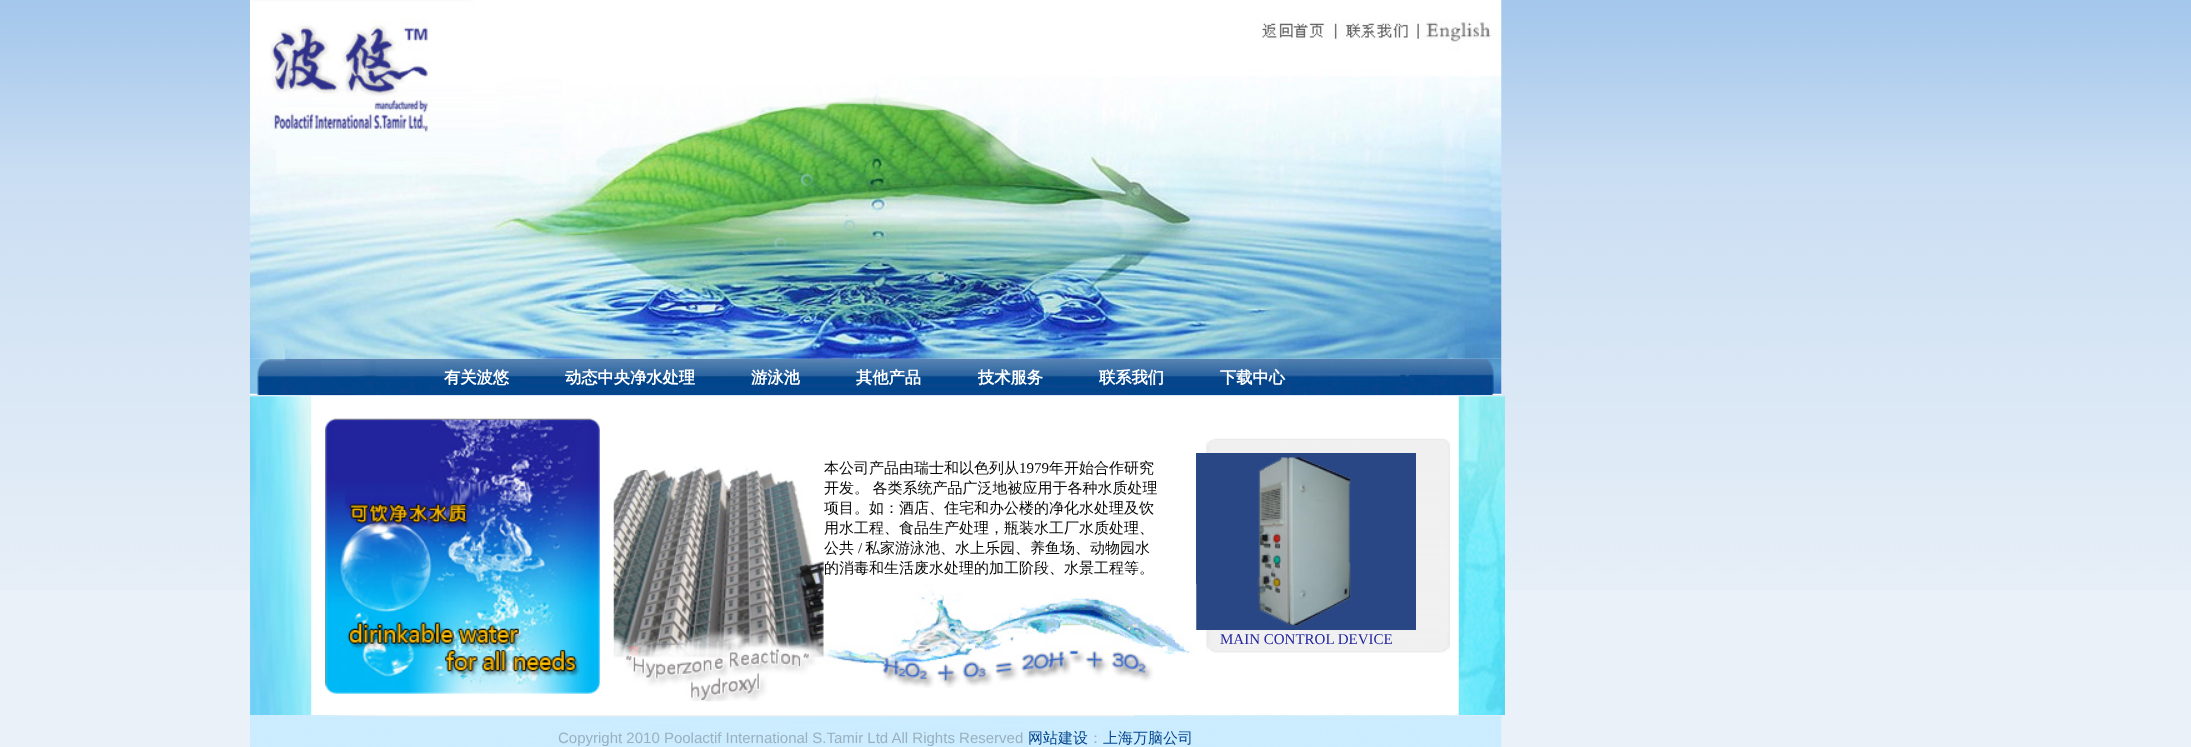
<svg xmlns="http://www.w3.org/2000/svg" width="2191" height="747">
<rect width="100%" height="100%" fill="#eaf1f8"/>
<image x="0" y="0" width="2191" height="590" href="media/1.png"/>
<image x="250" y="358" width="1252" height="37" href="media/3.png"/>
<image x="250" y="0" width="1252" height="359" href="media/2.png"/>
<text x="444" y="383" style="font-family:WenQuanYi Zen Hei;font-size:16.25px;font-weight:bold;fill:#fff">有关波悠</text>
<text x="565" y="383" style="font-family:WenQuanYi Zen Hei;font-size:16.25px;font-weight:bold;fill:#fff">动态中央净水处理</text>
<text x="751" y="383" style="font-family:WenQuanYi Zen Hei;font-size:16.25px;font-weight:bold;fill:#fff">游泳池</text>
<text x="856" y="383" style="font-family:WenQuanYi Zen Hei;font-size:16.25px;font-weight:bold;fill:#fff">其他产品</text>
<text x="978" y="383" style="font-family:WenQuanYi Zen Hei;font-size:16.25px;font-weight:bold;fill:#fff">技术服务</text>
<text x="1099" y="383" style="font-family:WenQuanYi Zen Hei;font-size:16.25px;font-weight:bold;fill:#fff">联系我们</text>
<text x="1220" y="383" style="font-family:WenQuanYi Zen Hei;font-size:16.25px;font-weight:bold;fill:#fff">下载中心</text>
<rect x="250" y="396" width="1255" height="319" fill="#fff"/>
<image x="250" y="396" width="62" height="319" href="media/4.png"/>
<image x="325" y="418" width="275" height="276" href="media/5.png"/>
<image x="613" y="466" width="211" height="236" href="media/6.png"/>
<text x="824" y="473" style="font-family:WenQuanYi Zen Hei;font-size:15px;font-weight:500;fill:#050505">本公司产品由瑞士和以色列从</text>
<text x="1019" y="473" style="font-family:Liberation Serif;font-size:15px;fill:#050505">1979</text>
<text x="1049" y="473" style="font-family:WenQuanYi Zen Hei;font-size:15px;font-weight:500;fill:#050505">年开始合作研究</text>
<text x="824" y="493" word-spacing="-1" style="font-family:WenQuanYi Zen Hei;font-size:15px;font-weight:500;fill:#050505">开发。 各类系统产品广泛地被应用于各种水质处理</text>
<text x="824" y="513" style="font-family:WenQuanYi Zen Hei;font-size:15px;font-weight:500;fill:#050505">项目。如：酒店、住宅和办公楼的净化水处理及饮</text>
<text x="824" y="533" style="font-family:WenQuanYi Zen Hei;font-size:15px;font-weight:500;fill:#050505">用水工程、食品生产处理，瓶装水工厂水质处理、</text>
<text x="824" y="553" style="font-family:WenQuanYi Zen Hei;font-size:15px;font-weight:500;fill:#050505">公共</text>
<text x="858" y="553" style="font-family:Liberation Serif;font-size:15px;fill:#050505">/</text>
<text x="865" y="553" style="font-family:WenQuanYi Zen Hei;font-size:15px;font-weight:500;fill:#050505">私家游泳池、水上乐园、养鱼场、动物园水</text>
<text x="824" y="573" style="font-family:WenQuanYi Zen Hei;font-size:15px;font-weight:500;fill:#050505">的消毒和生活废水处理的加工阶段、水景工程等。</text>
<image x="1206" y="438" width="244" height="215" href="media/8.png"/>
<rect x="1196" y="453" width="220" height="177" fill="#294785"/>
<image x="823" y="583" width="374" height="105" href="media/7.png"/>
<image x="1257" y="457" width="94" height="168" href="media/9.png"/>
<text x="1220" y="644" style="font-family:Liberation Serif;font-size:15px;fill:#22249d">MAIN CONTROL DEVICE</text>
<image x="1458" y="396" width="47" height="319" href="media/10.png"/>
<image x="250" y="715" width="1252" height="32" href="media/11.png"/>
<text x="558" y="743" style="font-family:Liberation Sans;font-size:15px;fill:#99b1bf">Copyright 2010 Poolactif International S.Tamir Ltd All Rights Reserved</text>
<text x="1028" y="743" style="font-family:WenQuanYi Zen Hei;font-size:15px;font-weight:500;fill:#03468d">网站建设</text>
<text x="1088" y="743" style="font-family:WenQuanYi Zen Hei;font-size:15px;font-weight:500;fill:#99b1bf">：</text>
<text x="1103" y="743" style="font-family:WenQuanYi Zen Hei;font-size:15px;font-weight:500;fill:#03468d">上海万脑公司</text>
</svg>
